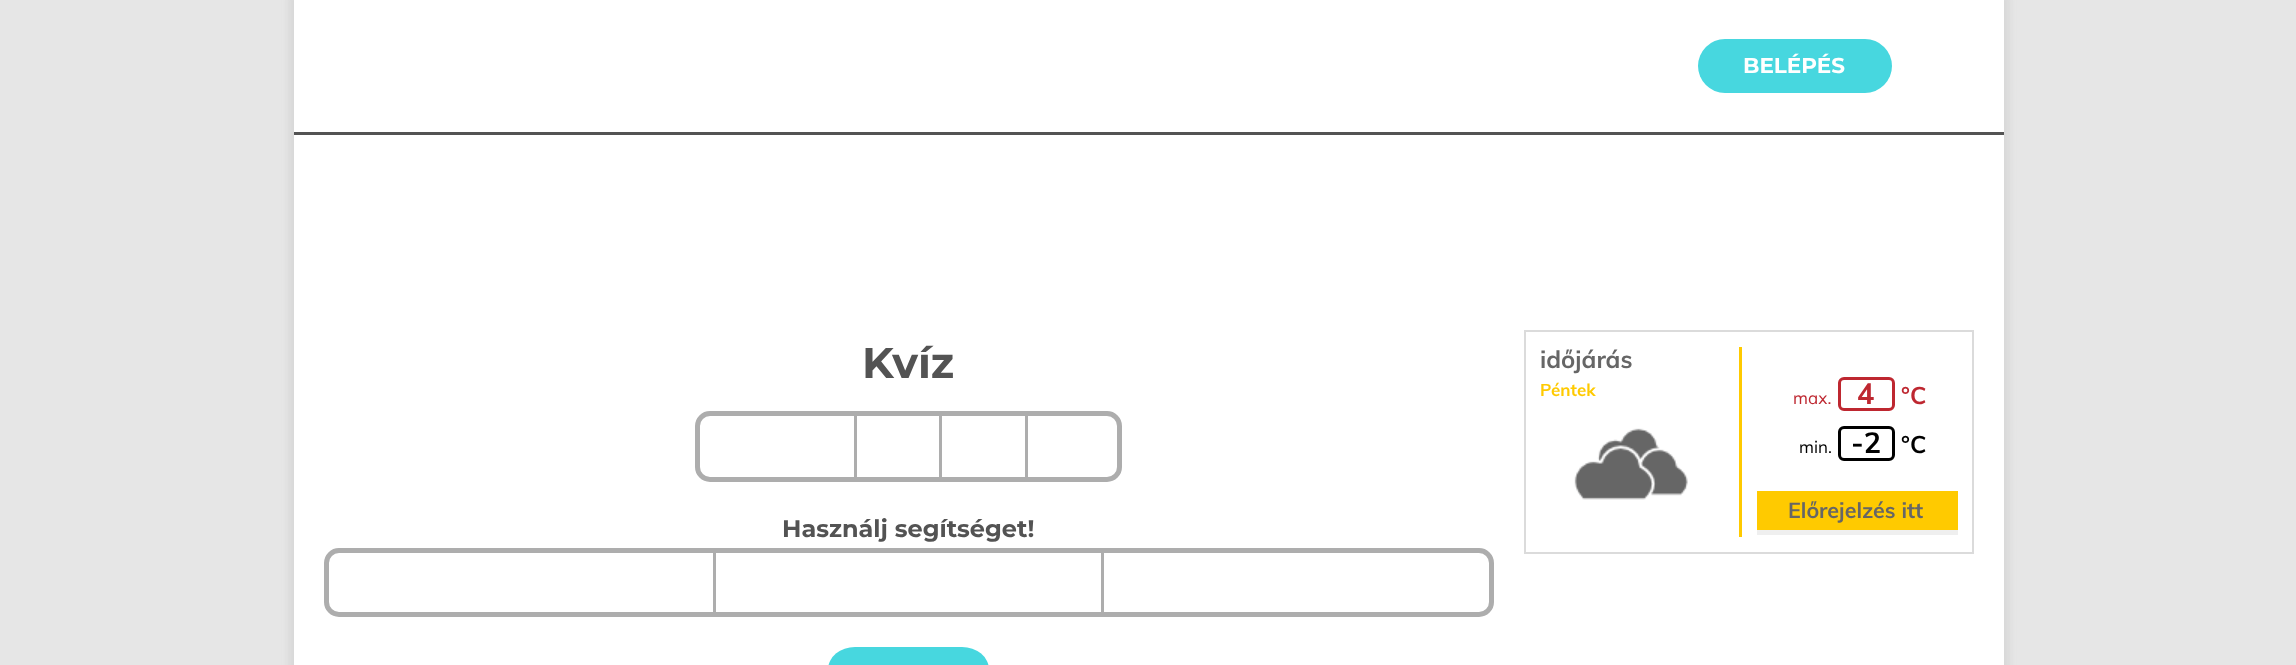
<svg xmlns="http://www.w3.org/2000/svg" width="2296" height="665">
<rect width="100%" height="100%" fill="#e6e6e6"/>
<rect x="288" y="-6" width="1722" height="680" fill="#d9d9d9" filter="blur(3px)"/>
<rect x="294" width="1710" height="665" fill="#fff"/>
<rect x="294" y="132" width="1710" height="3" fill="#535353"/>
<rect x="1698" y="39" width="194" height="54" rx="27" fill="#47d7df"/>
<text x="1743" y="73" style="font-family:Montserrat;font-size:21.5px;font-weight:bold;fill:#fff">BELÉPÉS</text>
<text x="862" y="378" style="font-family:Montserrat;font-size:43px;font-weight:bold;fill:#535353">Kvíz</text>
<rect x="697.5" y="413.5" width="422" height="66" rx="12.5" fill="none" stroke="#adadad" stroke-width="5"/>
<rect x="854" y="416" width="3" height="61" fill="#adadad"/>
<rect x="939" y="416" width="3" height="61" fill="#adadad"/>
<rect x="1025" y="416" width="3" height="61" fill="#adadad"/>
<text x="782" y="537" style="font-family:Montserrat;font-size:24px;font-weight:bold;fill:#535353">Használj segítséget!</text>
<rect x="326.5" y="550.5" width="1165" height="64" rx="12.5" fill="none" stroke="#adadad" stroke-width="5"/>
<rect x="713" y="552" width="3" height="60" fill="#adadad"/>
<rect x="1101" y="552" width="3" height="60" fill="#adadad"/>
<rect x="828" y="647" width="161" height="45" rx="27" fill="#47d7df"/>
<rect x="1525" y="331" width="448" height="222" fill="none" stroke="#dbdbdb" stroke-width="2"/>
<rect x="1739" y="347" width="3" height="190" fill="#ffca00"/>
<text x="1540" y="368" style="font-family:Muli;font-size:24px;font-weight:bold;fill:#666">időjárás</text>
<text x="1540" y="396" style="font-family:Muli;font-size:17px;font-weight:bold;fill:#ffca00">Péntek</text>
<image x="1574" y="428" width="114" height="72" href="media/1.png"/>
<text x="1793" y="404" style="font-family:Muli;font-size:17px;fill:#be2730">max.</text>
<rect x="1839.5" y="378.5" width="54" height="31" rx="4.5" fill="none" stroke="#be2730" stroke-width="3"/>
<text x="1857" y="404" style="font-family:Muli;font-size:29px;font-weight:bold;fill:#be2730">4</text>
<text x="1901" y="404" style="font-family:Muli;font-size:24px;font-weight:bold;fill:#be2730">°C</text>
<text x="1799" y="453" style="font-family:Muli;font-size:17px;fill:#000">min.</text>
<rect x="1839.5" y="427.5" width="54" height="32" rx="4.5" fill="none" stroke="#000" stroke-width="3"/>
<text x="1851" y="453" style="font-family:Muli;font-size:29px;font-weight:bold;fill:#000">-2</text>
<text x="1901" y="453" style="font-family:Muli;font-size:24px;font-weight:bold;fill:#000">°C</text>
<rect x="1757" y="491" width="201" height="39" fill="#ffca00"/>
<rect x="1757" y="530" width="201" height="5" fill="#efefef"/>
<text x="1788" y="518" style="font-family:Muli;font-size:21.5px;font-weight:bold;fill:#666">Előrejelzés itt</text>
</svg>
